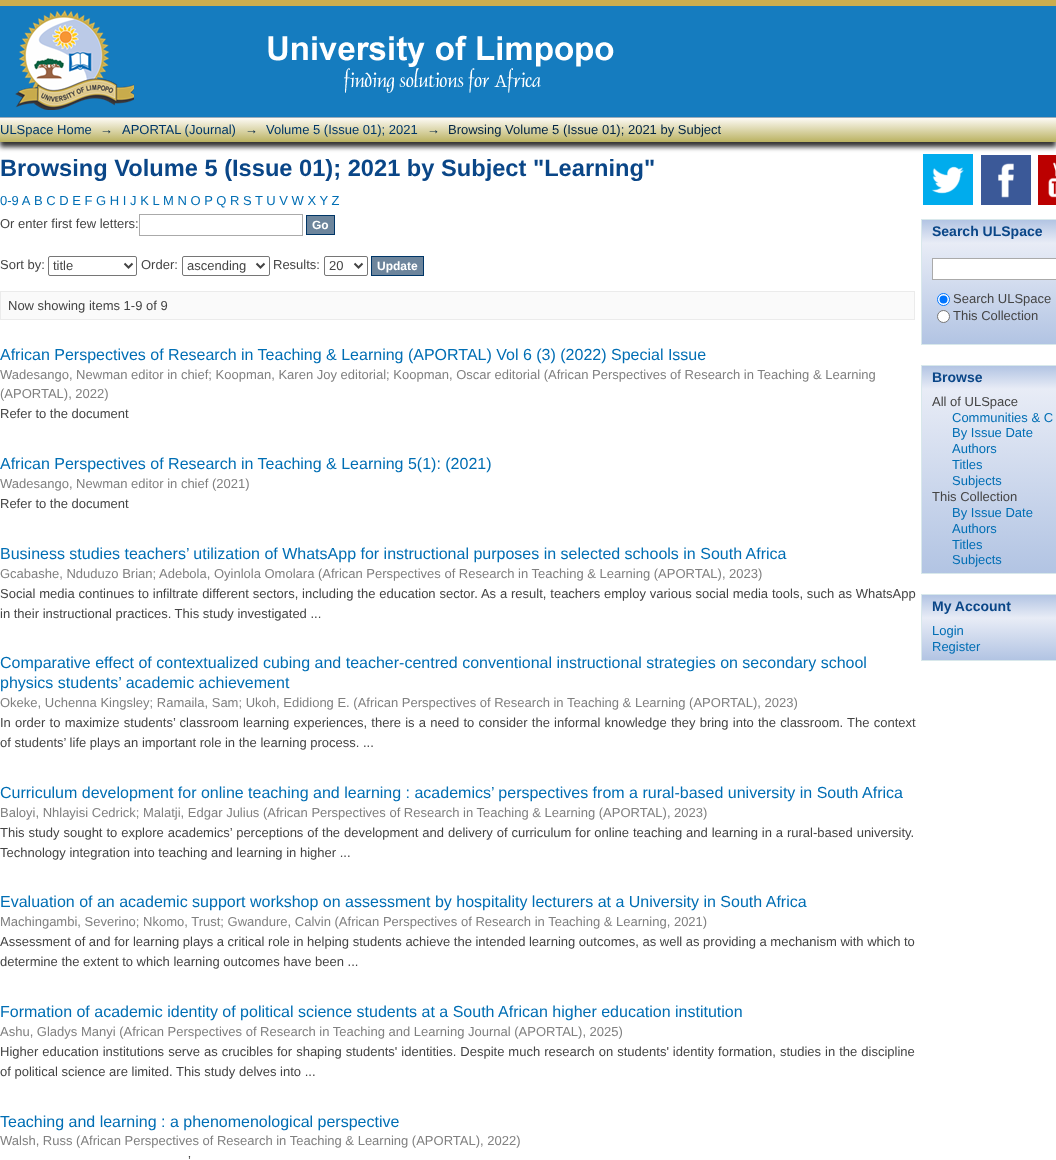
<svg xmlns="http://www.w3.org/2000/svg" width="1056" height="1160">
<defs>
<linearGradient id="g1" gradientUnits="userSpaceOnUse" x1="528" y1="118" x2="528" y2="142"><stop offset="0" stop-color="#fdfaf5"/><stop offset="1" stop-color="#bab261"/></linearGradient>
<linearGradient id="g2" gradientUnits="userSpaceOnUse" x1="1046" y1="220" x2="1046" y2="243"><stop offset="0" stop-color="#b2c4e3"/><stop offset="1" stop-color="#e8ecf6"/></linearGradient>
<linearGradient id="g3" gradientUnits="userSpaceOnUse" x1="1046" y1="243" x2="1046" y2="344"><stop offset="0" stop-color="#e8ecf6"/><stop offset="1" stop-color="#b2c4e3"/></linearGradient>
<linearGradient id="g4" gradientUnits="userSpaceOnUse" x1="1046" y1="366" x2="1046" y2="389"><stop offset="0" stop-color="#b2c4e3"/><stop offset="1" stop-color="#e8ecf6"/></linearGradient>
<linearGradient id="g5" gradientUnits="userSpaceOnUse" x1="1046" y1="389" x2="1046" y2="573"><stop offset="0" stop-color="#e8ecf6"/><stop offset="1" stop-color="#b2c4e3"/></linearGradient>
<linearGradient id="g6" gradientUnits="userSpaceOnUse" x1="1046" y1="595" x2="1046" y2="618"><stop offset="0" stop-color="#b2c4e3"/><stop offset="1" stop-color="#e8ecf6"/></linearGradient>
<linearGradient id="g7" gradientUnits="userSpaceOnUse" x1="1046" y1="618" x2="1046" y2="660"><stop offset="0" stop-color="#e8ecf6"/><stop offset="1" stop-color="#b2c4e3"/></linearGradient>
</defs>
<rect width="100%" height="100%" fill="#fff"/>
<rect y="6" width="1056" height="111" fill="#157cbf"/>
<rect width="1056" height="6" fill="#cbad4e"/>
<image x="15" y="10" width="119" height="100" href="media/1.png"/>
<image x="268" y="35" width="346" height="58" href="media/2.png"/>
<image x="923" y="154" width="50" height="51" href="media/3.png"/>
<image x="981" y="155" width="50" height="50" href="media/4.png"/>
<image x="1038" y="155" width="18" height="50" href="media/5.png"/>
<rect y="122" width="1056" height="25" fill="#333" filter="blur(2.5px)"/>
<rect y="118" width="1056" height="24" fill="url(#g1)"/>
<rect y="117" width="1056" height="1" fill="#9cacba"/>
<text x="0" y="134" style="font-family:Liberation Sans;font-size:13px;fill:#003667">ULSpace Home</text>
<text x="100" y="134" style="font-family:Liberation Sans;font-size:13px;fill:#002343">→</text>
<text x="122" y="134" style="font-family:Liberation Sans;font-size:13px;fill:#003667">APORTAL (Journal)</text>
<text x="245" y="134" style="font-family:Liberation Sans;font-size:13px;fill:#002343">→</text>
<text x="266" y="134" style="font-family:Liberation Sans;font-size:13px;fill:#003667">Volume 5 (Issue 01); 2021</text>
<text x="427" y="134" style="font-family:Liberation Sans;font-size:13px;fill:#002343">→</text>
<text x="448" y="134" style="font-family:Liberation Sans;font-size:13px;fill:#002343">Browsing Volume 5 (Issue 01); 2021 by Subject</text>
<text x="0" y="176" style="font-family:Liberation Sans;font-size:23.65px;font-weight:bold;fill:#0a4687">Browsing Volume 5 (Issue 01); 2021 by Subject "Learning"</text>
<text x="0" y="205" style="font-family:Liberation Sans;font-size:13px;fill:#006eb4">0-9 A</text>
<text x="34" y="205" style="font-family:Liberation Sans;font-size:13px;fill:#006eb4">B C D E F G H I J K L</text>
<text x="163" y="205" style="font-family:Liberation Sans;font-size:13px;fill:#006eb4">M N O P Q R S T U V W X Y Z</text>
<text x="0" y="228" style="font-family:Liberation Sans;font-size:13px;fill:#444">Or enter first few letters:</text>
<rect x="139.5" y="214.5" width="163" height="21" fill="none" stroke="#aaa"/>
<rect x="306.5" y="215.5" width="28" height="19" fill="#6d859c" stroke="#003667"/>
<text x="312" y="229" style="font-family:Liberation Sans;font-size:12px;font-weight:bold;fill:#fff">Go</text>
<text x="0" y="269" style="font-family:Liberation Sans;font-size:13px;fill:#444">Sort by:</text>
<rect x="48.5" y="256.5" width="88" height="19" rx="1.5" fill="none" stroke="#767676"/>
<path d="M124.5 263.5l4 4l4-4" fill="none" stroke="#444" stroke-width="2"/>
<text x="53" y="270" style="font-family:Liberation Sans;font-size:13px;fill:#444">title</text>
<text x="141" y="269" style="font-family:Liberation Sans;font-size:13px;fill:#444">Order:</text>
<rect x="182.5" y="256.5" width="87" height="19" rx="1.5" fill="none" stroke="#767676"/>
<path d="M256.5 263.5l4 4l4-4" fill="none" stroke="#444" stroke-width="2"/>
<text x="187" y="270" style="font-family:Liberation Sans;font-size:13px;fill:#444">ascending</text>
<text x="273" y="269" style="font-family:Liberation Sans;font-size:13px;fill:#444">Results:</text>
<rect x="324.5" y="256.5" width="43" height="19" rx="1.5" fill="none" stroke="#767676"/>
<path d="M354.5 263.5l4 4l4-4" fill="none" stroke="#444" stroke-width="2"/>
<text x="329" y="270" style="font-family:Liberation Sans;font-size:13px;fill:#444">20</text>
<rect x="371.5" y="256.5" width="52" height="19" fill="#6d859c" stroke="#003667"/>
<text x="377" y="270" style="font-family:Liberation Sans;font-size:12px;font-weight:bold;fill:#fff">Update</text>
<rect x="0.5" y="291.5" width="914" height="28" fill="#fafafa" stroke="#ebebeb"/>
<text x="8" y="310" style="font-family:Liberation Sans;font-size:13px;fill:#444">Now showing items 1-9 of 9</text>
<text x="0" y="360" style="font-family:Liberation Sans;font-size:16px;fill:#006eb4">African Perspectives of Research in Teaching &amp; Learning (APORTAL) Vol 6 (3) (2022) Special Issue</text>
<text x="0" y="379" style="font-family:Liberation Sans;font-size:13px;fill:#808080">Wadesango, Newman editor in chief; Koopman, Karen Joy editorial; Koopman, Oscar editorial (African Perspectives of Research in Teaching &amp; Learning</text>
<text x="0" y="398" style="font-family:Liberation Sans;font-size:13px;fill:#808080">(APORTAL), 2022)</text>
<text x="0" y="418" style="font-family:Liberation Sans;font-size:13px;fill:#444">Refer to the document</text>
<text x="0" y="469" style="font-family:Liberation Sans;font-size:16px;fill:#006eb4">African Perspectives of Research in Teaching &amp; Learning 5(1): (2021)</text>
<text x="0" y="488" style="font-family:Liberation Sans;font-size:13px;fill:#808080">Wadesango, Newman editor in chief (2021)</text>
<text x="0" y="508" style="font-family:Liberation Sans;font-size:13px;fill:#444">Refer to the document</text>
<text x="0" y="559" style="font-family:Liberation Sans;font-size:16px;fill:#006eb4">Business studies teachers’ utilization of WhatsApp for instructional purposes in selected schools in South Africa</text>
<text x="0" y="578" style="font-family:Liberation Sans;font-size:13px;fill:#808080">Gcabashe, Nduduzo Brian;</text>
<text x="159" y="578" style="font-family:Liberation Sans;font-size:13px;fill:#808080">Adebola, Oyinlola Omolara (African Perspectives of Research in Teaching &amp; Learning (APORTAL), 2023)</text>
<text x="0" y="598" word-spacing="0.25" style="font-family:Liberation Sans;font-size:13px;fill:#444">Social media continues to infiltrate different sectors, including the education sector. As a result, teachers employ various social media tools, such as WhatsApp</text>
<text x="0" y="618" style="font-family:Liberation Sans;font-size:13px;fill:#444">in their instructional practices. This study investigated ...</text>
<text x="0" y="668" style="font-family:Liberation Sans;font-size:16px;fill:#006eb4">Comparative effect of contextualized cubing and teacher-centred conventional instructional strategies on secondary school</text>
<text x="0" y="688" style="font-family:Liberation Sans;font-size:16px;fill:#006eb4">physics students’ academic achievement</text>
<text x="0" y="707" style="font-family:Liberation Sans;font-size:13px;fill:#808080">Okeke, Uchenna Kingsley; Ramaila, Sam; Ukoh, Edidiong E. (African Perspectives of Research in Teaching &amp; Learning (APORTAL), 2023)</text>
<text x="0" y="727" word-spacing="0.6" style="font-family:Liberation Sans;font-size:13px;fill:#444">In order to maximize students’ classroom learning experiences, there is a need to consider the informal knowledge they bring into the classroom. The context</text>
<text x="0" y="747" style="font-family:Liberation Sans;font-size:13px;fill:#444">of students’ life plays an important role in the learning process. ...</text>
<text x="0" y="798" style="font-family:Liberation Sans;font-size:16px;fill:#006eb4">Curriculum development for online teaching and learning : academics’ perspectives from a rural-based university in South Africa</text>
<text x="0" y="817" style="font-family:Liberation Sans;font-size:13px;fill:#808080">Baloyi, Nhlayisi Cedrick; Malatji, Edgar Julius (African Perspectives of Research in Teaching &amp; Learning (APORTAL), 2023)</text>
<text x="0" y="837" word-spacing="0.3" style="font-family:Liberation Sans;font-size:13px;fill:#444">This study sought to explore academics’ perceptions of the development and delivery of curriculum for online teaching and learning in a rural-based university.</text>
<text x="0" y="857" style="font-family:Liberation Sans;font-size:13px;fill:#444">Technology integration into teaching and learning in higher ...</text>
<text x="0" y="907" style="font-family:Liberation Sans;font-size:16px;fill:#006eb4">Evaluation of an academic support workshop on assessment by hospitality lecturers at a University in South Africa</text>
<text x="0" y="926" style="font-family:Liberation Sans;font-size:13px;fill:#808080">Machingambi, Severino; Nkomo, Trust; Gwandure, Calvin (African Perspectives of Research in Teaching &amp; Learning, 2021)</text>
<text x="0" y="946" style="font-family:Liberation Sans;font-size:13px;fill:#444">Assessment of and for learning plays a critical role in helping students achieve the intended learning outcomes, as well as providing a mechanism with which to</text>
<text x="0" y="966" style="font-family:Liberation Sans;font-size:13px;fill:#444">determine the extent to which learning outcomes have been ...</text>
<text x="0" y="1017" style="font-family:Liberation Sans;font-size:16px;fill:#006eb4">Formation of academic identity of political science students at a South African higher education institution</text>
<text x="0" y="1036" style="font-family:Liberation Sans;font-size:13px;fill:#808080">Ashu, Gladys Manyi (African Perspectives of Research in Teaching and Learning Journal (APORTAL), 2025)</text>
<text x="0" y="1056" word-spacing="0.4" style="font-family:Liberation Sans;font-size:13px;fill:#444">Higher education institutions serve as crucibles for shaping students' identities. Despite much research on students' identity formation, studies in the discipline</text>
<text x="0" y="1076" style="font-family:Liberation Sans;font-size:13px;fill:#444">of political science are limited. This study delves into ...</text>
<text x="0" y="1127" style="font-family:Liberation Sans;font-size:16px;fill:#006eb4">Teaching and learning : a phenomenological perspective</text>
<text x="0" y="1145" style="font-family:Liberation Sans;font-size:13px;fill:#808080">Walsh, Russ (African Perspectives of Research in Teaching &amp; Learning (APORTAL), 2022)</text>
<text x="188" y="1165" word-spacing="2" style="font-family:Liberation Sans;font-size:13px;fill:#444">’</text>
<rect x="922" y="220" width="134" height="23" fill="url(#g2)"/>
<rect x="921" y="219" width="135" height="1" fill="#d8e8eb"/>
<rect x="921" y="219" width="1" height="24" fill="#d8e8eb"/>
<text x="932" y="236" style="font-family:Liberation Sans;font-size:14px;font-weight:bold;fill:#0a4687">Search ULSpace</text>
<rect x="922" y="243" width="134" height="101" fill="url(#g3)"/>
<rect x="921" y="344" width="135" height="1" fill="#d8e8eb"/>
<rect x="921" y="243" width="1" height="102" fill="#d8e8eb"/>
<rect x="932.5" y="258.5" width="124" height="21" fill="#fff" stroke="#aaa"/>
<circle cx="943.5" cy="299.5" r="6" fill="#fff" stroke="#0075ff"/>
<circle cx="943.5" cy="299.5" r="4" fill="#0075ff"/>
<text x="953" y="303" style="font-family:Liberation Sans;font-size:13px;fill:#444">Search ULSpace</text>
<circle cx="943.5" cy="316.5" r="6" fill="#fff" stroke="#767676"/>
<text x="953" y="320" style="font-family:Liberation Sans;font-size:13px;fill:#444">This Collection</text>
<rect x="922" y="366" width="134" height="23" fill="url(#g4)"/>
<rect x="921" y="365" width="135" height="1" fill="#d8e8eb"/>
<rect x="921" y="365" width="1" height="24" fill="#d8e8eb"/>
<text x="932" y="382" style="font-family:Liberation Sans;font-size:14px;font-weight:bold;fill:#0a4687">Browse</text>
<rect x="922" y="389" width="134" height="184" fill="url(#g5)"/>
<rect x="921" y="573" width="135" height="1" fill="#d8e8eb"/>
<rect x="921" y="389" width="1" height="185" fill="#d8e8eb"/>
<text x="932" y="406" style="font-family:Liberation Sans;font-size:13px;fill:#444">All of ULSpace</text>
<text x="952" y="422" style="font-family:Liberation Sans;font-size:13px;fill:#006eb4">Communities &amp; C</text>
<text x="952" y="437" style="font-family:Liberation Sans;font-size:13px;fill:#006eb4">By Issue Date</text>
<text x="952" y="453" style="font-family:Liberation Sans;font-size:13px;fill:#006eb4">Authors</text>
<text x="952" y="469" style="font-family:Liberation Sans;font-size:13px;fill:#006eb4">Titles</text>
<text x="952" y="485" style="font-family:Liberation Sans;font-size:13px;fill:#006eb4">Subjects</text>
<text x="932" y="501" style="font-family:Liberation Sans;font-size:13px;fill:#444">This Collection</text>
<text x="952" y="517" style="font-family:Liberation Sans;font-size:13px;fill:#006eb4">By Issue Date</text>
<text x="952" y="533" style="font-family:Liberation Sans;font-size:13px;fill:#006eb4">Authors</text>
<text x="952" y="549" style="font-family:Liberation Sans;font-size:13px;fill:#006eb4">Titles</text>
<text x="952" y="564" style="font-family:Liberation Sans;font-size:13px;fill:#006eb4">Subjects</text>
<rect x="922" y="595" width="134" height="23" fill="url(#g6)"/>
<rect x="921" y="594" width="135" height="1" fill="#d8e8eb"/>
<rect x="921" y="594" width="1" height="24" fill="#d8e8eb"/>
<text x="932" y="611" style="font-family:Liberation Sans;font-size:14px;font-weight:bold;fill:#0a4687">My Account</text>
<rect x="922" y="618" width="134" height="42" fill="url(#g7)"/>
<rect x="921" y="660" width="135" height="1" fill="#d8e8eb"/>
<rect x="921" y="618" width="1" height="43" fill="#d8e8eb"/>
<text x="932" y="635" style="font-family:Liberation Sans;font-size:13px;fill:#006eb4">Login</text>
<text x="932" y="651" style="font-family:Liberation Sans;font-size:13px;fill:#006eb4">Register</text>
</svg>
